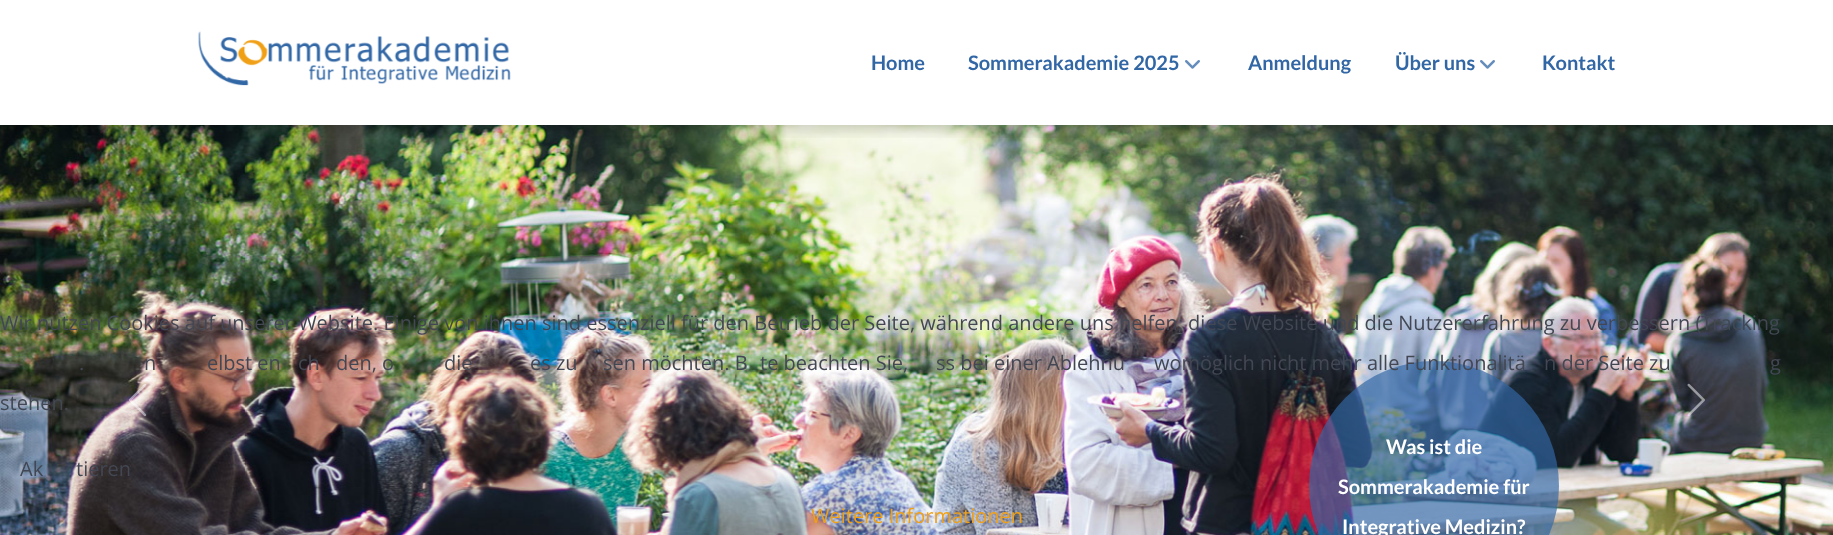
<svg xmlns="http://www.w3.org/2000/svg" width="1833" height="535">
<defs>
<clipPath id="clip1"><rect x="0" y="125" width="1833" height="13"/></clipPath>
</defs>
<rect width="100%" height="100%" fill="#fff"/>
<image x="0" y="125" width="1833" height="410" href="media/5.png"/>
<g clip-path="url(#clip1)">
<rect x="-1" y="3" width="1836" height="127" fill="#00000029" filter="blur(7px)"/>
</g>
<image x="198" y="31" width="313" height="55" href="media/1.png"/>
<text x="871" y="70" style="font-family:Lato;font-size:20px;font-weight:bold;fill:#3267a5">Home</text>
<text x="968" y="70" style="font-family:Lato;font-size:20px;font-weight:bold;fill:#3267a5">Sommerakademie 2025</text>
<image x="1185" y="60" width="15" height="9" href="media/2.png"/>
<text x="1248" y="70" style="font-family:Lato;font-size:20px;font-weight:bold;fill:#3267a5">Anmeldung</text>
<text x="1395" y="70" style="font-family:Lato;font-size:20px;font-weight:bold;fill:#3267a5">Über uns</text>
<image x="1480" y="60" width="15" height="9" href="media/2.png"/>
<text x="1542" y="70" style="font-family:Lato;font-size:20px;font-weight:bold;fill:#3267a5">Kontakt</text>
<image x="128" y="383" width="19" height="34" href="media/3.png"/>
<image x="1687" y="383" width="18" height="34" href="media/4.png"/>
<circle cx="1434" cy="486" r="125" fill="#3267a5ad"/>
<text x="1386" y="454" style="font-family:Lato;font-size:20px;font-weight:bold;fill:#fff">Was ist die</text>
<text x="1338" y="494" style="font-family:Lato;font-size:20px;font-weight:bold;fill:#fff">Sommerakademie für</text>
<text x="1342" y="534" style="font-family:Lato;font-size:20px;font-weight:bold;fill:#fff">Integrative Medizin?</text>
<text x="0" y="330" style="font-family:Open Sans;font-size:20px;fill:#424753">Wir nutzen Cookies auf unserer Website. Einige von ihnen sind essenziell für den Betrieb der Seite, während andere uns helfen, diese Website und die Nutzererfahrung zu verbessern (Tracking</text>
<text x="79" y="370" style="font-family:Open Sans;font-size:20px;fill:#424753">.</text>
<text x="144" y="370" style="font-family:Open Sans;font-size:20px;fill:#424753">n</text>
<text x="207" y="370" style="font-family:Open Sans;font-size:20px;fill:#424753">elbst en</text>
<text x="298" y="370" style="font-family:Open Sans;font-size:20px;fill:#424753">ch</text>
<text x="336" y="370" style="font-family:Open Sans;font-size:20px;fill:#424753">den, o</text>
<text x="444" y="370" style="font-family:Open Sans;font-size:20px;fill:#424753">die</text>
<text x="530" y="370" style="font-family:Open Sans;font-size:20px;fill:#424753">es zu</text>
<text x="603" y="370" style="font-family:Open Sans;font-size:20px;fill:#424753">sen möchten. B</text>
<text x="760" y="370" style="font-family:Open Sans;font-size:20px;fill:#424753">te beachten Sie,</text>
<text x="936" y="370" style="font-family:Open Sans;font-size:20px;fill:#424753">ss bei einer Ablehnu</text>
<text x="1154" y="370" style="font-family:Open Sans;font-size:20px;fill:#424753">womöglich nicht mehr alle Funktionalitä</text>
<text x="1544" y="370" style="font-family:Open Sans;font-size:20px;fill:#424753">n der Seite zu</text>
<text x="1770" y="370" style="font-family:Open Sans;font-size:20px;fill:#424753">g</text>
<text x="0" y="410" style="font-family:Open Sans;font-size:20px;fill:#424753">stehen.</text>
<text x="20" y="476" style="font-family:Open Sans;font-size:20px;fill:#424753">Ak</text>
<text x="76" y="476" style="font-family:Open Sans;font-size:20px;fill:#424753">tieren</text>
<text x="811" y="523" style="font-family:Open Sans;font-size:20px;fill:#f0a016">Weitere Informationen</text>
</svg>
